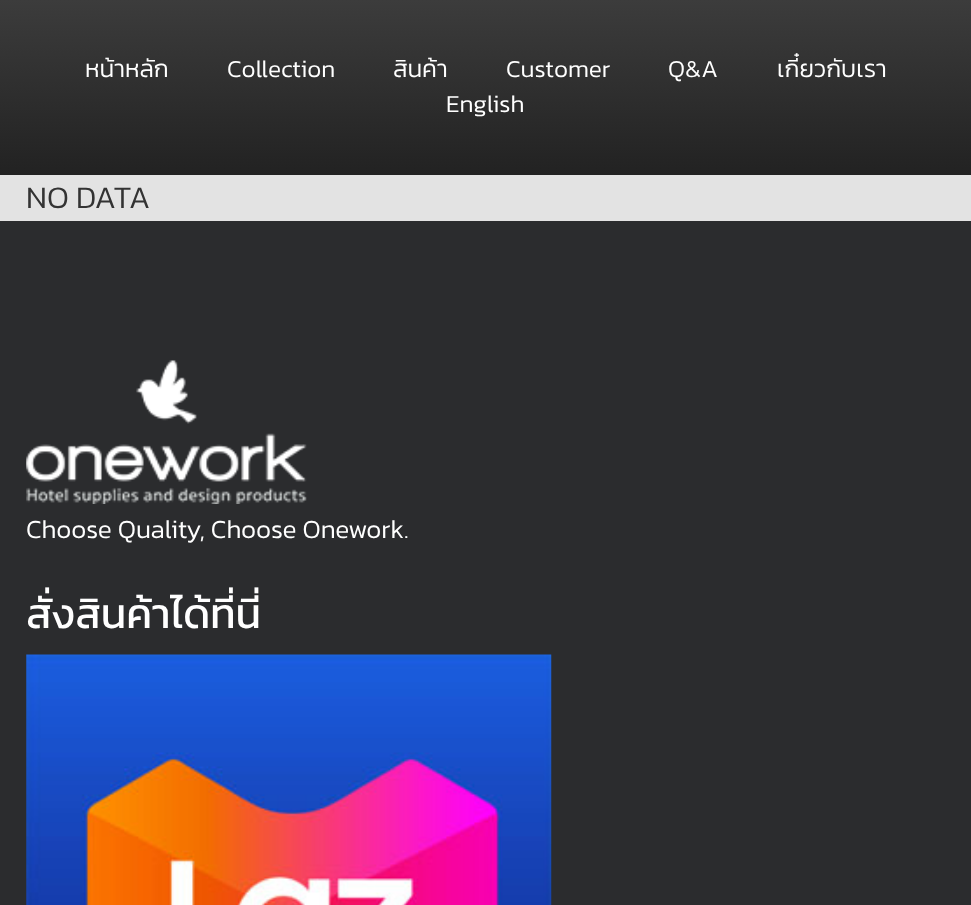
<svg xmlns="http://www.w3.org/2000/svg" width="971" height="905">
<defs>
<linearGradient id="g1" gradientUnits="userSpaceOnUse" x1="486" y1="0" x2="486" y2="175"><stop offset="0" stop-color="#3c3c3c"/><stop offset="1" stop-color="#222"/></linearGradient>
</defs>
<rect width="100%" height="100%" fill="#e3e3e3"/>
<rect width="971" height="175" fill="url(#g1)"/>
<text x="85" y="77" style="font-family:Kanit;font-size:24.5px;font-weight:300;fill:#fff">หน้าหลัก</text>
<text x="227" y="77" style="font-family:Kanit;font-size:24.5px;font-weight:300;fill:#fff">Collection</text>
<text x="393" y="77" style="font-family:Kanit;font-size:24.5px;font-weight:300;fill:#fff">สินค้า</text>
<text x="506" y="77" style="font-family:Kanit;font-size:24.5px;font-weight:300;fill:#fff">Customer</text>
<text x="668" y="77" style="font-family:Kanit;font-size:24.5px;font-weight:300;fill:#fff">Q&amp;A</text>
<text x="777" y="77" style="font-family:Kanit;font-size:24.5px;font-weight:300;fill:#fff">เกี๋ยวกับเรา</text>
<text x="446" y="112" style="font-family:Kanit;font-size:24.5px;font-weight:300;fill:#fff">English</text>
<text x="26" y="208" style="font-family:Kanit;font-size:31.5px;font-weight:300;fill:#333">NO DATA</text>
<rect y="221" width="971" height="684" fill="#2b2c2e"/>
<image x="26" y="360" width="281" height="144" href="media/1.png"/>
<text x="26" y="538" style="font-family:Kanit;font-size:26.25px;font-weight:300;fill:#fff">Choose Quality, Choose Onework.</text>
<text x="26" y="628" style="font-family:Kanit;font-size:42px;fill:#fff">สั่งสินค้าได้ที่นี่</text>
<image x="26" y="654" width="526" height="251" href="media/2.png"/>
</svg>
